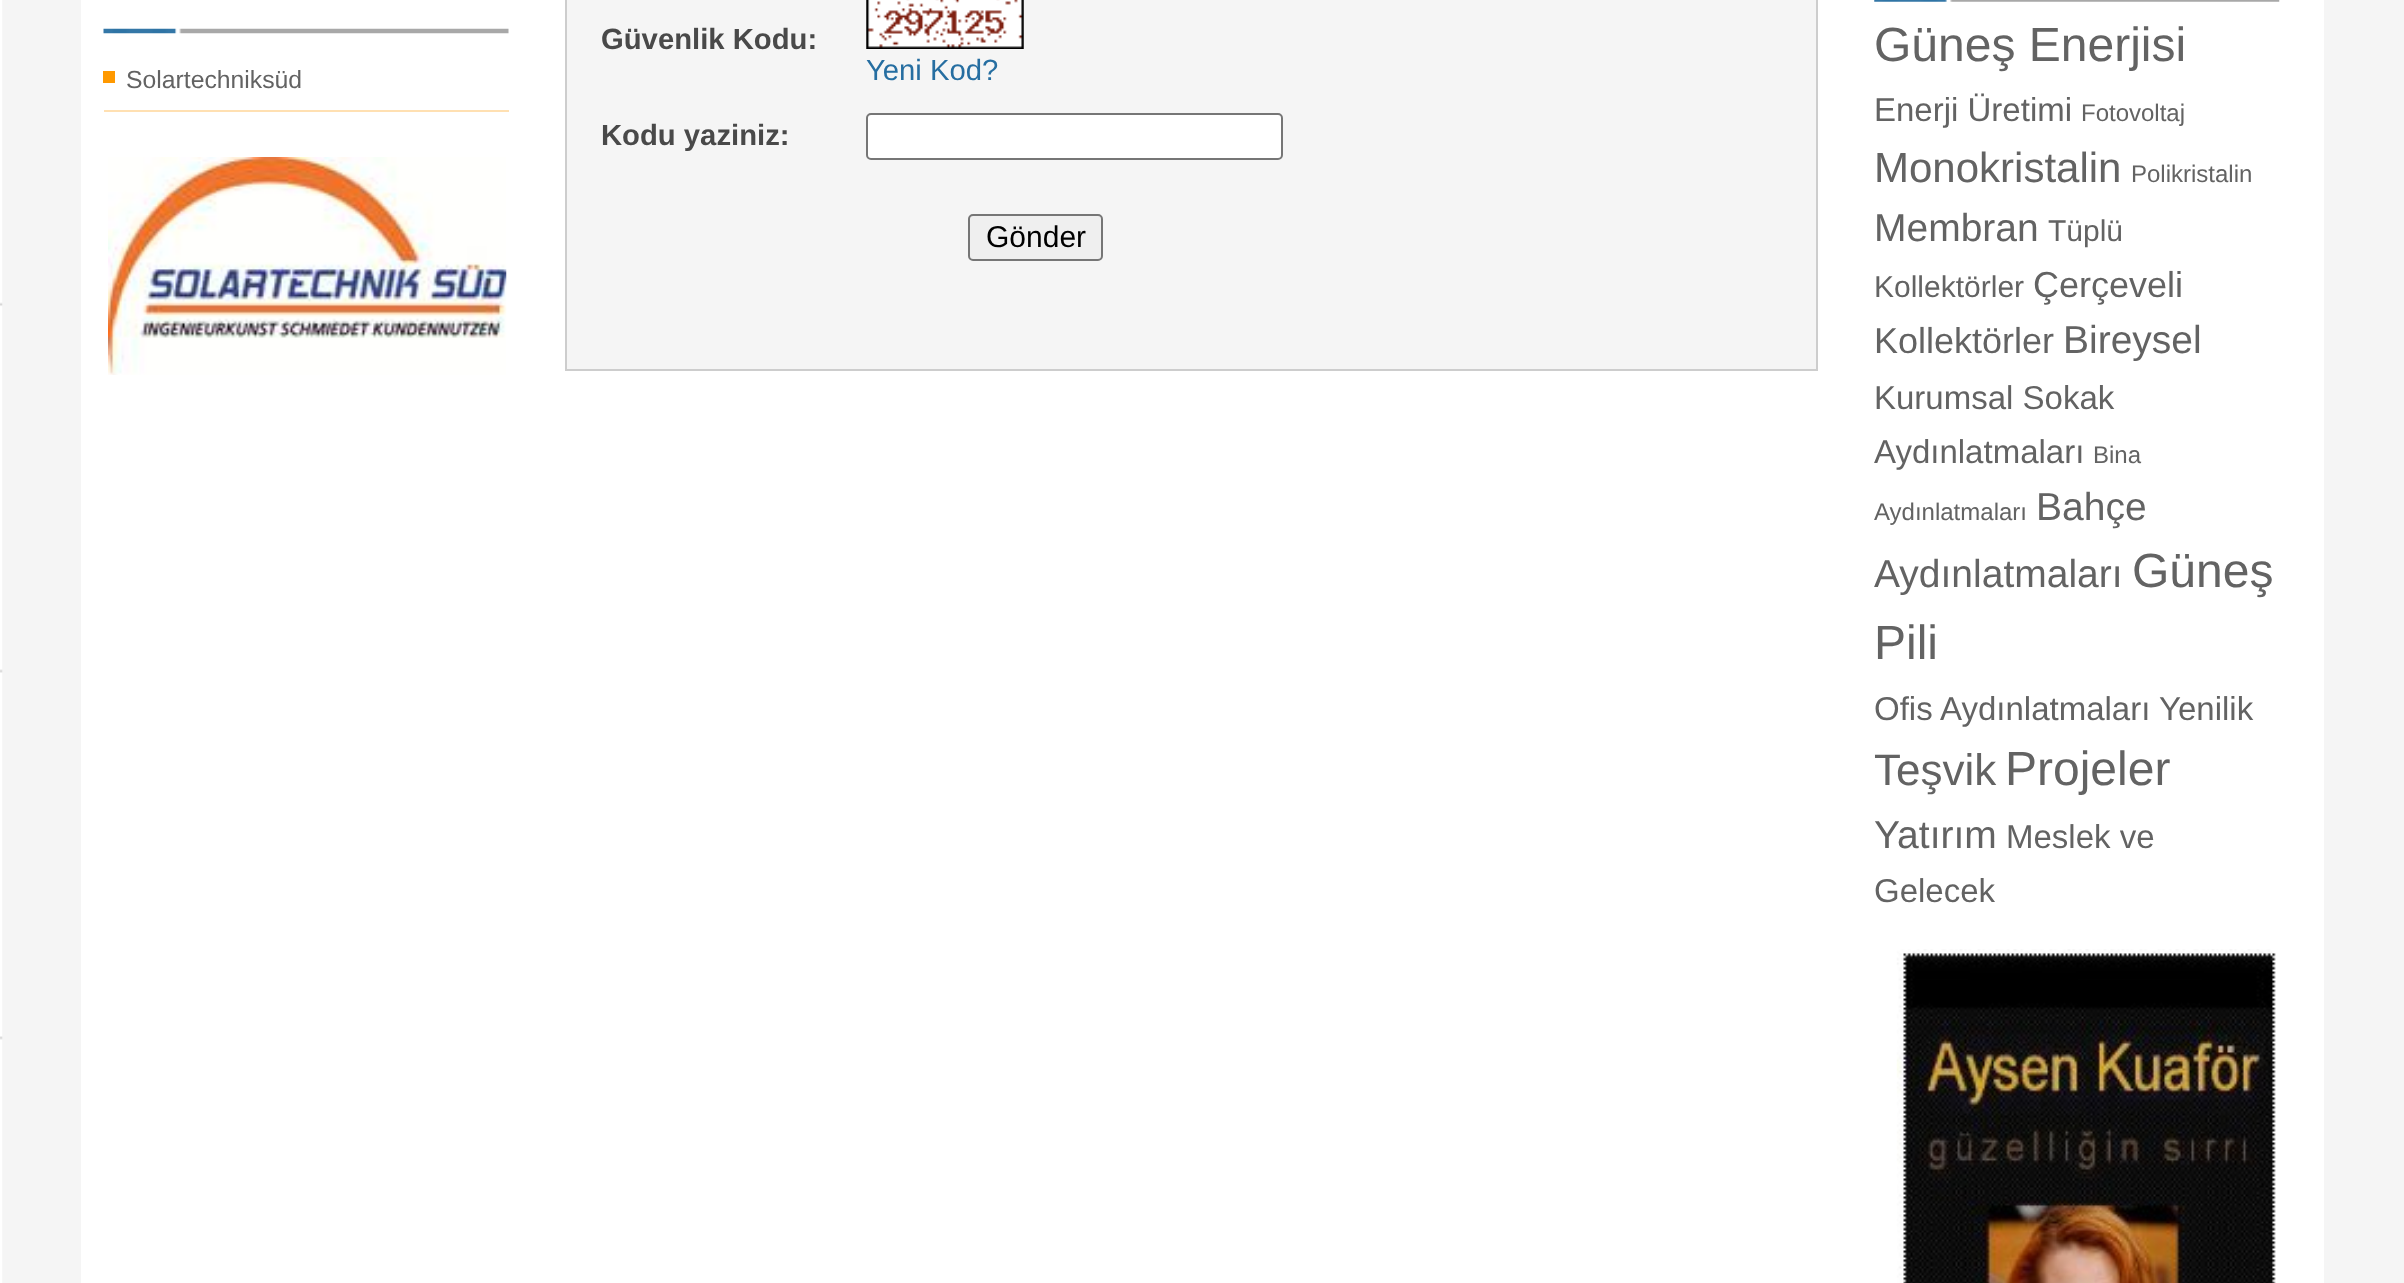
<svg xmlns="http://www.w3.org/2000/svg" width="2404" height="1283">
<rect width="100%" height="100%" fill="#f5f5f5"/>
<image x="0" y="0" width="3" height="1283" href="media/1.png"/>
<rect x="81" width="2243" height="1283" fill="#fff"/>
<image x="103" y="28" width="406" height="6" href="media/2.png"/>
<rect x="103" y="71" width="12" height="12" fill="#f90"/>
<rect x="104" y="110" width="405" height="2" fill="#ffe0b2"/>
<text x="126" y="88" style="font-family:Liberation Sans;font-size:24.75px;fill:#636363">Solartechniksüd</text>
<image x="108" y="157" width="399" height="218" href="media/3.png"/>
<rect x="566" y="-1" width="1251" height="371" fill="#f5f5f5" stroke="#cdcdcd" stroke-width="2"/>
<text x="601" y="49" style="font-family:Liberation Sans;font-size:29.25px;font-weight:bold;fill:#494949">Güvenlik Kodu:</text>
<image x="866" y="0" width="158" height="49" href="media/4.png"/>
<text x="866" y="80" style="font-family:Liberation Sans;font-size:29.25px;fill:#266ea1">Yeni Kod?</text>
<text x="601" y="145" style="font-family:Liberation Sans;font-size:29.25px;font-weight:bold;fill:#494949">Kodu yaziniz:</text>
<rect x="867" y="114" width="415" height="45" rx="4" fill="#fff" stroke="#767676" stroke-width="2"/>
<rect x="969" y="215" width="133" height="45" rx="4" fill="#efefef" stroke="#767676" stroke-width="2"/>
<text x="986" y="247" style="font-family:Liberation Sans;font-size:30px;fill:#000">Gönder</text>
<image x="1874" y="0" width="406" height="2" href="media/5.png"/>
<text x="1874" y="61" style="font-family:Liberation Sans;font-size:48px;fill:#636363">Güneş Enerjisi</text>
<text x="1874" y="121" style="font-family:Liberation Sans;font-size:33px;fill:#636363">Enerji Üretimi</text>
<text x="2081" y="121" style="font-family:Liberation Sans;font-size:24px;fill:#636363">Fotovoltaj</text>
<text x="1874" y="182" style="font-family:Liberation Sans;font-size:42px;fill:#636363">Monokristalin</text>
<text x="2131" y="182" style="font-family:Liberation Sans;font-size:24px;fill:#636363">Polikristalin</text>
<text x="1874" y="241" style="font-family:Liberation Sans;font-size:39px;fill:#636363">Membran</text>
<text x="2048" y="241" style="font-family:Liberation Sans;font-size:30px;fill:#636363">Tüplü</text>
<text x="1874" y="297" style="font-family:Liberation Sans;font-size:30px;fill:#636363">Kollektörler</text>
<text x="2033" y="297" style="font-family:Liberation Sans;font-size:36px;fill:#636363">Çerçeveli</text>
<text x="1874" y="353" style="font-family:Liberation Sans;font-size:36px;fill:#636363">Kollektörler</text>
<text x="2063" y="353" style="font-family:Liberation Sans;font-size:39px;fill:#636363">Bireysel</text>
<text x="1874" y="409" style="font-family:Liberation Sans;font-size:33px;fill:#636363">Kurumsal Sokak</text>
<text x="1874" y="463" style="font-family:Liberation Sans;font-size:33px;fill:#636363">Aydınlatmaları</text>
<text x="2093" y="463" style="font-family:Liberation Sans;font-size:24px;fill:#636363">Bina</text>
<text x="1874" y="520" style="font-family:Liberation Sans;font-size:24px;fill:#636363">Aydınlatmaları</text>
<text x="2036" y="520" style="font-family:Liberation Sans;font-size:39px;fill:#636363">Bahçe</text>
<text x="1874" y="587" style="font-family:Liberation Sans;font-size:39px;fill:#636363">Aydınlatmaları</text>
<text x="2132" y="587" style="font-family:Liberation Sans;font-size:48px;fill:#636363">Güneş</text>
<text x="1874" y="659" style="font-family:Liberation Sans;font-size:48px;fill:#636363">Pili</text>
<text x="1874" y="720" style="font-family:Liberation Sans;font-size:33px;fill:#636363">Ofis Aydınlatmaları</text>
<text x="2159" y="720" style="font-family:Liberation Sans;font-size:33px;fill:#636363">Yenilik</text>
<text x="1874" y="785" style="font-family:Liberation Sans;font-size:44px;fill:#636363">Teşvik</text>
<text x="2005" y="785" style="font-family:Liberation Sans;font-size:48px;fill:#636363">Projeler</text>
<text x="1874" y="848" style="font-family:Liberation Sans;font-size:39px;fill:#636363">Yatırım</text>
<text x="2006" y="848" style="font-family:Liberation Sans;font-size:33px;fill:#636363">Meslek ve</text>
<text x="1874" y="902" style="font-family:Liberation Sans;font-size:33px;fill:#636363">Gelecek</text>
<image x="1896" y="949" width="380" height="334" href="media/6.png"/>
</svg>
